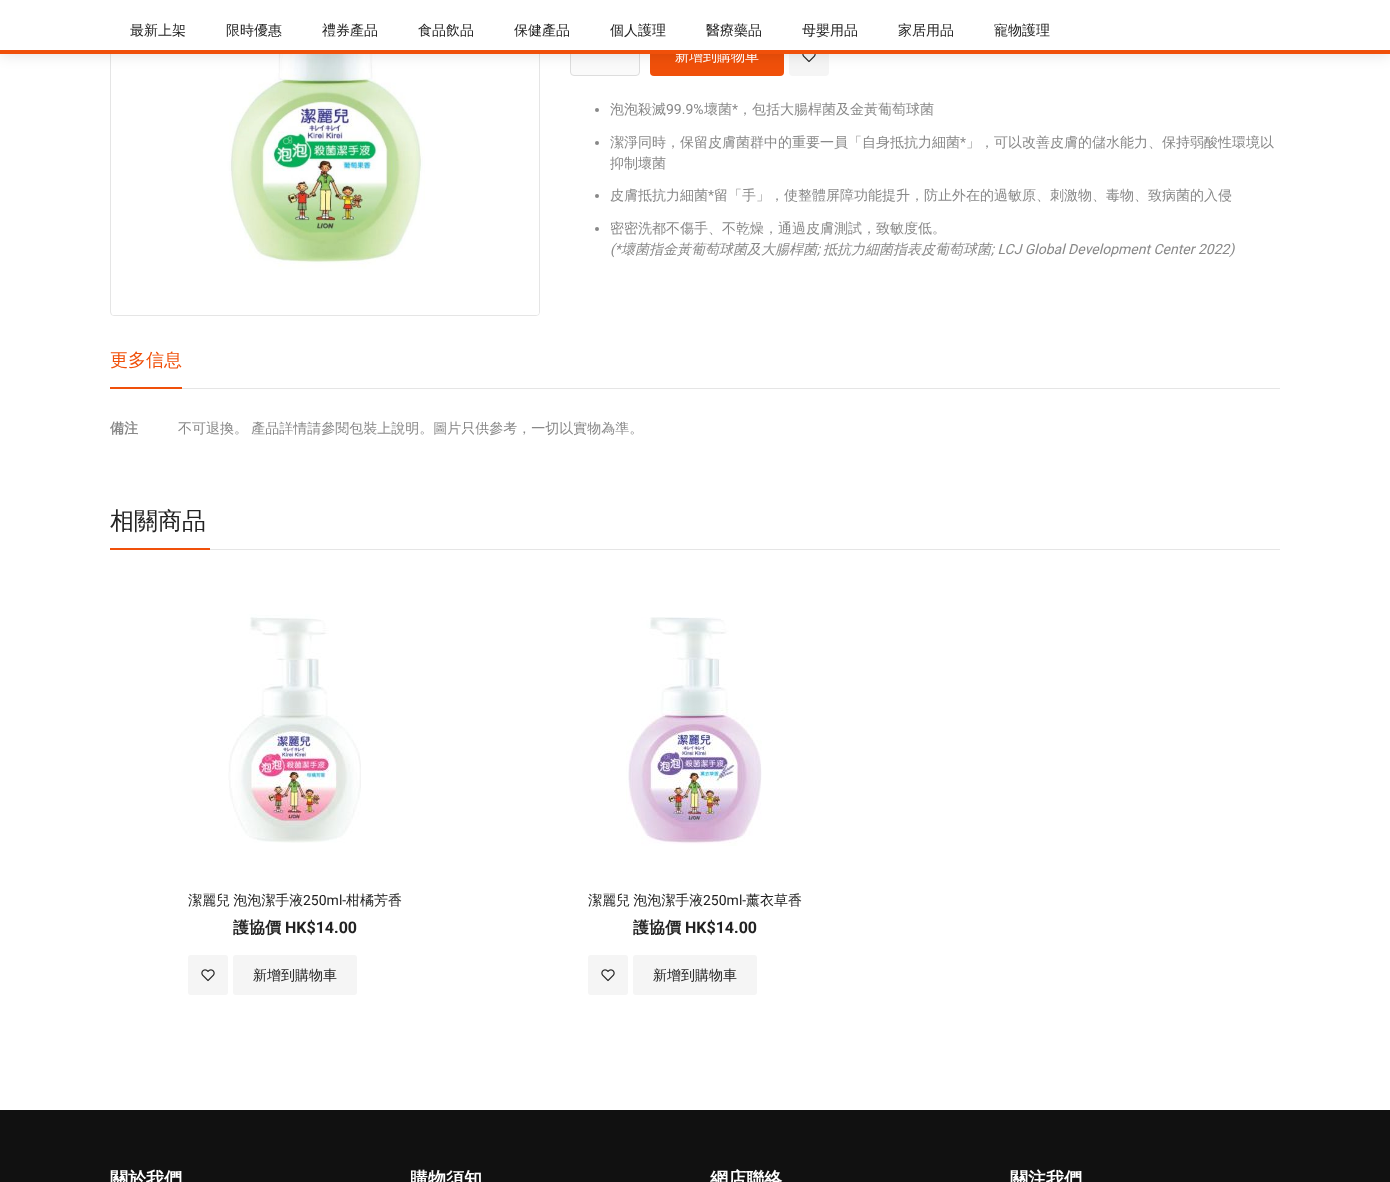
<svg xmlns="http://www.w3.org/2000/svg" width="1390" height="1182">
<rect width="100%" height="100%" fill="#fff"/>
<rect x="110.5" y="-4.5" width="429" height="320" rx="3.5" fill="none" stroke="#e5e5e5"/>
<image x="112" y="54" width="427" height="261" href="media/1.png"/>
<rect x="570.5" y="36.5" width="69" height="39" rx="3.5" fill="#fafafa" stroke="#ddd"/>
<rect x="650" y="36" width="134" height="40" rx="4" fill="#f0500a"/>
<rect x="789" y="36" width="40" height="40" rx="4" fill="#f5f5f5"/>
<image x="802" y="54" width="14" height="9" href="media/2.png"/>
<rect width="1390" height="54" fill="#00000021" filter="blur(7.5px)"/>
<rect width="1390" height="50" fill="#fff"/>
<text x="675" y="61" style="font-family:WenQuanYi Zen Hei;font-size:14px;font-weight:500;fill:#fff">新增到購物車</text>
<rect y="50" width="1390" height="4" fill="#f0500a"/>
<text x="130" y="35" style="font-family:WenQuanYi Zen Hei;font-size:14px;font-weight:500;fill:#222">最新上架</text>
<text x="226" y="35" style="font-family:WenQuanYi Zen Hei;font-size:14px;font-weight:500;fill:#222">限時優惠</text>
<text x="322" y="35" style="font-family:WenQuanYi Zen Hei;font-size:14px;font-weight:500;fill:#222">禮券產品</text>
<text x="418" y="35" style="font-family:WenQuanYi Zen Hei;font-size:14px;font-weight:500;fill:#222">食品飲品</text>
<text x="514" y="35" style="font-family:WenQuanYi Zen Hei;font-size:14px;font-weight:500;fill:#222">保健產品</text>
<text x="610" y="35" style="font-family:WenQuanYi Zen Hei;font-size:14px;font-weight:500;fill:#222">個人護理</text>
<text x="706" y="35" style="font-family:WenQuanYi Zen Hei;font-size:14px;font-weight:500;fill:#222">醫療藥品</text>
<text x="802" y="35" style="font-family:WenQuanYi Zen Hei;font-size:14px;font-weight:500;fill:#222">母嬰用品</text>
<text x="898" y="35" style="font-family:WenQuanYi Zen Hei;font-size:14px;font-weight:500;fill:#222">家居用品</text>
<text x="994" y="35" style="font-family:WenQuanYi Zen Hei;font-size:14px;font-weight:500;fill:#222">寵物護理</text>
<circle cx="597" cy="110" r="2" fill="#888"/>
<text x="610" y="114" style="font-family:WenQuanYi Zen Hei;font-size:14px;font-weight:500;fill:#888">泡泡殺滅</text>
<text x="666" y="114" style="font-family:Roboto;font-size:14px;fill:#888">99.9%</text>
<text x="704" y="114" style="font-family:WenQuanYi Zen Hei;font-size:14px;font-weight:500;fill:#888">壞菌</text>
<text x="732" y="114" style="font-family:Roboto;font-size:14px;fill:#888">*</text>
<text x="738" y="114" style="font-family:WenQuanYi Zen Hei;font-size:14px;font-weight:500;fill:#888">，包括大腸桿菌及金黃葡萄球菌</text>
<circle cx="597" cy="143" r="2" fill="#888"/>
<text x="610" y="147" style="font-family:WenQuanYi Zen Hei;font-size:14px;font-weight:500;fill:#888">潔淨同時，保留皮膚菌群中的重要一員「自身抵抗力細菌</text>
<text x="960" y="147" style="font-family:Roboto;font-size:14px;fill:#888">*</text>
<text x="966" y="147" style="font-family:WenQuanYi Zen Hei;font-size:14px;font-weight:500;fill:#888">」，可以改善皮膚的儲水能力、保持弱酸性環境以</text>
<text x="610" y="168" style="font-family:WenQuanYi Zen Hei;font-size:14px;font-weight:500;fill:#888">抑制壞菌</text>
<circle cx="597" cy="196" r="2" fill="#888"/>
<text x="610" y="200" style="font-family:WenQuanYi Zen Hei;font-size:14px;font-weight:500;fill:#888">皮膚抵抗力細菌</text>
<text x="708" y="200" style="font-family:Roboto;font-size:14px;fill:#888">*</text>
<text x="714" y="200" style="font-family:WenQuanYi Zen Hei;font-size:14px;font-weight:500;fill:#888">留「手」，使整體屏障功能提升，防止外在的過敏原、刺激物、毒物、致病菌的入侵</text>
<circle cx="597" cy="229" r="2" fill="#888"/>
<text x="610" y="233" style="font-family:WenQuanYi Zen Hei;font-size:14px;font-weight:500;fill:#888">密密洗都不傷手、不乾燥，通過皮膚測試，致敏度低。</text>
<text x="610" y="254" style="font-family:Roboto;font-size:14px;font-style:italic;fill:#888">(*</text>
<text x="621" y="254" style="font-family:WenQuanYi Zen Hei;font-size:14px;font-weight:500;font-style:italic;fill:#888">壞菌指金黃葡萄球菌及大腸桿菌</text>
<text x="823" y="254" style="font-family:WenQuanYi Zen Hei;font-size:14px;font-weight:500;font-style:italic;fill:#888">抵抗力細菌指表皮葡萄球菌</text>
<text x="991" y="254" style="font-family:Roboto;font-size:14px;font-style:italic;fill:#888">; LCJ Global Development Center 2022)</text>
<text x="817" y="254" style="font-family:Roboto;font-size:14px;font-style:italic;fill:#888">;</text>
<rect x="182" y="388" width="1098" height="1" fill="#e5e5e5"/>
<text x="110" y="366" style="font-family:WenQuanYi Zen Hei;font-size:18px;font-weight:500;fill:#f0500a">更多信息</text>
<rect x="110" y="387" width="72" height="2" fill="#f0500a"/>
<text x="110" y="433" style="font-family:WenQuanYi Zen Hei;font-size:14px;font-weight:bold;fill:#888">備注</text>
<text x="178" y="433" word-spacing="-1" style="font-family:WenQuanYi Zen Hei;font-size:14px;font-weight:500;fill:#888">不可退換。 產品詳情請參閱包裝上說明。圖片只供參考，一切以實物為準。</text>
<rect x="210" y="549" width="1070" height="1" fill="#e5e5e5"/>
<text x="110" y="529" style="font-family:WenQuanYi Zen Hei;font-size:24px;font-weight:500;fill:#222">相關商品</text>
<rect x="110" y="548" width="100" height="2" fill="#f0500a"/>
<image x="228" y="614" width="133" height="229" href="media/3.png"/>
<text x="188" y="905" word-spacing="-1" style="font-family:WenQuanYi Zen Hei;font-size:14px;font-weight:500;fill:#222">潔麗兒 泡泡潔手液</text>
<text x="303" y="905" style="font-family:Roboto;font-size:14px;fill:#222">250ml-</text>
<text x="346" y="905" style="font-family:WenQuanYi Zen Hei;font-size:14px;font-weight:500;fill:#222">柑橘芳香</text>
<text x="233" y="933" style="font-family:WenQuanYi Zen Hei;font-size:16px;font-weight:bold;fill:#222">護協價</text>
<text x="285" y="933" style="font-family:Roboto;font-size:16px;font-weight:bold;fill:#222">HK$14.00</text>
<rect x="188" y="955" width="40" height="40" rx="3" fill="#f5f5f5"/>
<image x="201" y="969" width="14" height="13" href="media/4.png"/>
<rect x="233" y="955" width="124" height="40" rx="3" fill="#f5f5f5"/>
<text x="253" y="980" style="font-family:WenQuanYi Zen Hei;font-size:14px;font-weight:500;fill:#222">新增到購物車</text>
<image x="626" y="617" width="136" height="229" href="media/5.png"/>
<text x="588" y="905" word-spacing="-1" style="font-family:WenQuanYi Zen Hei;font-size:14px;font-weight:500;fill:#222">潔麗兒 泡泡潔手液</text>
<text x="703" y="905" style="font-family:Roboto;font-size:14px;fill:#222">250ml-</text>
<text x="746" y="905" style="font-family:WenQuanYi Zen Hei;font-size:14px;font-weight:500;fill:#222">薰衣草香</text>
<text x="633" y="933" style="font-family:WenQuanYi Zen Hei;font-size:16px;font-weight:bold;fill:#222">護協價</text>
<text x="685" y="933" style="font-family:Roboto;font-size:16px;font-weight:bold;fill:#222">HK$14.00</text>
<rect x="588" y="955" width="40" height="40" rx="3" fill="#f5f5f5"/>
<image x="601" y="969" width="14" height="13" href="media/4.png"/>
<rect x="633" y="955" width="124" height="40" rx="3" fill="#f5f5f5"/>
<text x="653" y="980" style="font-family:WenQuanYi Zen Hei;font-size:14px;font-weight:500;fill:#222">新增到購物車</text>
<rect y="1110" width="1390" height="72" fill="#111"/>
<text x="110" y="1185" style="font-family:WenQuanYi Zen Hei;font-size:18px;font-weight:bold;fill:#fff">關於我們</text>
<text x="410" y="1185" style="font-family:WenQuanYi Zen Hei;font-size:18px;font-weight:bold;fill:#fff">購物須知</text>
<text x="710" y="1185" style="font-family:WenQuanYi Zen Hei;font-size:18px;font-weight:bold;fill:#fff">網店聯絡</text>
<text x="1010" y="1185" style="font-family:WenQuanYi Zen Hei;font-size:18px;font-weight:bold;fill:#fff">關注我們</text>
</svg>
